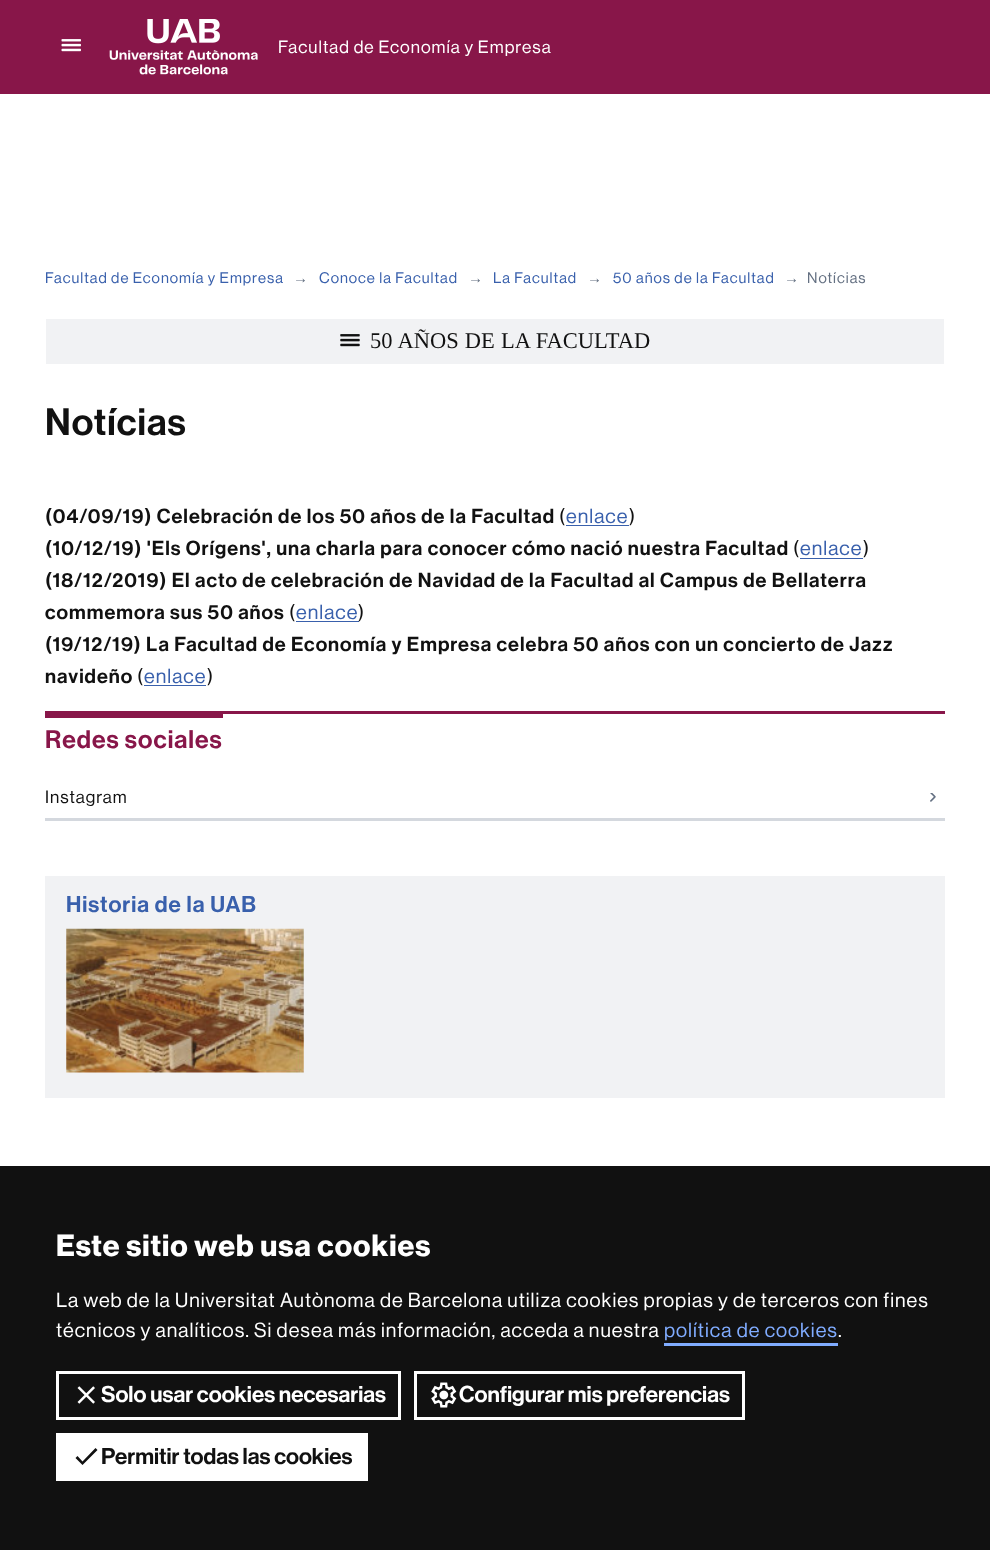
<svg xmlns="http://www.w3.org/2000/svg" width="990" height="1550">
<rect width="100%" height="100%" fill="#fff"/>
<rect width="990" height="94" fill="#881649"/>
<image x="61" y="39" width="20" height="13" href="media/1.png"/>
<image x="109" y="19" width="149" height="56" href="media/2.png"/>
<text x="278" y="53" style="font-family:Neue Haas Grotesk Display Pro;font-size:17.5px;font-weight:500;letter-spacing:1px;fill:#fff">Facultad de Economía y Empresa</text>
<text x="45" y="283" style="font-family:Neue Haas Grotesk Display Pro;font-size:15px;font-weight:500;letter-spacing:1px;fill:#3960ac">Facultad de Economía y Empresa</text>
<text x="293" y="283" style="font-family:Liberation Sans;font-size:15px;letter-spacing:1px;fill:#647082">→</text>
<text x="319" y="283" style="font-family:Neue Haas Grotesk Display Pro;font-size:15px;font-weight:500;letter-spacing:1px;fill:#3960ac">Conoce la Facultad</text>
<text x="468" y="283" style="font-family:Liberation Sans;font-size:15px;letter-spacing:1px;fill:#647082">→</text>
<text x="493" y="283" style="font-family:Neue Haas Grotesk Display Pro;font-size:15px;font-weight:500;letter-spacing:1px;fill:#3960ac">La Facultad</text>
<text x="587" y="283" style="font-family:Liberation Sans;font-size:15px;letter-spacing:1px;fill:#647082">→</text>
<text x="613" y="283" style="font-family:Neue Haas Grotesk Display Pro;font-size:15px;font-weight:500;letter-spacing:1px;fill:#3960ac">50 años de la Facultad</text>
<text x="784" y="283" style="font-family:Liberation Sans;font-size:15px;letter-spacing:1px;fill:#647082">→</text>
<text x="807" y="283" style="font-family:Neue Haas Grotesk Display Pro;font-size:15px;font-weight:500;letter-spacing:1px;fill:#647082">Notícias</text>
<rect x="46" y="319" width="898" height="45" fill="#f1f2f4"/>
<image x="340" y="334" width="20" height="13" href="media/3.png"/>
<text x="370" y="348" word-spacing="0.5" style="font-family:Liberation Serif;font-size:22.5px;fill:#111">50 AÑOS DE LA FACULTAD</text>
<text x="45" y="435" style="font-family:'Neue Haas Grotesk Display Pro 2';font-size:37.5px;font-weight:500;letter-spacing:1px;fill:#111">Notícias</text>
<text x="45" y="523" style="font-family:'Neue Haas Grotesk Display Pro 2';font-size:20px;font-weight:500;letter-spacing:1px;fill:#111">(04/09/19) Celebración de los 50 años de la Facultad</text>
<text x="559" y="523" style="font-family:Neue Haas Grotesk Display Pro;font-size:20px;font-weight:500;letter-spacing:1px;fill:#111">(</text>
<text x="566" y="523" style="font-family:Neue Haas Grotesk Display Pro;font-size:20px;font-weight:500;letter-spacing:1px;fill:#3960ac">enlace</text>
<rect x="566" y="525" width="63" height="1" fill="#3960ac"/>
<text x="629" y="523" style="font-family:Neue Haas Grotesk Display Pro;font-size:20px;font-weight:500;letter-spacing:1px;fill:#111">)</text>
<text x="45" y="555" style="font-family:'Neue Haas Grotesk Display Pro 2';font-size:20px;font-weight:500;letter-spacing:1px;fill:#111">(10/12/19) 'Els Orígens', una charla para conocer cómo nació nuestra Facultad</text>
<text x="793" y="555" style="font-family:Neue Haas Grotesk Display Pro;font-size:20px;font-weight:500;letter-spacing:1px;fill:#111">(</text>
<text x="800" y="555" style="font-family:Neue Haas Grotesk Display Pro;font-size:20px;font-weight:500;letter-spacing:1px;fill:#3960ac">enlace</text>
<rect x="800" y="558" width="63" height="1" fill="#3960ac"/>
<text x="863" y="555" style="font-family:Neue Haas Grotesk Display Pro;font-size:20px;font-weight:500;letter-spacing:1px;fill:#111">)</text>
<text x="45" y="587" style="font-family:'Neue Haas Grotesk Display Pro 2';font-size:20px;font-weight:500;letter-spacing:1px;fill:#111">(18/12/2019) El acto de celebración de Navidad de la Facultad al Campus de Bellaterra</text>
<text x="45" y="619" style="font-family:'Neue Haas Grotesk Display Pro 2';font-size:20px;font-weight:500;letter-spacing:1px;fill:#111">commemora sus 50 años</text>
<text x="289" y="619" style="font-family:Neue Haas Grotesk Display Pro;font-size:20px;font-weight:500;letter-spacing:1px;fill:#111">(</text>
<text x="296" y="619" style="font-family:Neue Haas Grotesk Display Pro;font-size:20px;font-weight:500;letter-spacing:1px;fill:#3960ac">enlace</text>
<rect x="296" y="621" width="63" height="1" fill="#3960ac"/>
<text x="358" y="619" style="font-family:Neue Haas Grotesk Display Pro;font-size:20px;font-weight:500;letter-spacing:1px;fill:#111">)</text>
<text x="45" y="651" style="font-family:'Neue Haas Grotesk Display Pro 2';font-size:20px;font-weight:500;letter-spacing:1px;fill:#111">(19/12/19) La Facultad de Economía y Empresa celebra 50 años con un concierto de Jazz</text>
<text x="45" y="683" style="font-family:'Neue Haas Grotesk Display Pro 2';font-size:20px;font-weight:500;letter-spacing:1px;fill:#111">navideño</text>
<text x="137" y="683" style="font-family:Neue Haas Grotesk Display Pro;font-size:20px;font-weight:500;letter-spacing:1px;fill:#111">(</text>
<text x="144" y="683" style="font-family:Neue Haas Grotesk Display Pro;font-size:20px;font-weight:500;letter-spacing:1px;fill:#3960ac">enlace</text>
<rect x="144" y="685" width="62" height="1" fill="#3960ac"/>
<text x="207" y="683" style="font-family:Neue Haas Grotesk Display Pro;font-size:20px;font-weight:500;letter-spacing:1px;fill:#111">)</text>
<rect x="45" y="711" width="900" height="3" fill="#881649"/>
<rect x="45" y="714" width="178" height="4" fill="#881649"/>
<text x="45" y="748" style="font-family:'Neue Haas Grotesk Display Pro 2';font-size:25px;font-weight:500;letter-spacing:1px;fill:#881649">Redes sociales</text>
<rect x="45" y="818" width="900" height="3" fill="#d4d8de"/>
<text x="45" y="803" style="font-family:Neue Haas Grotesk Display Pro;font-size:17.5px;font-weight:500;letter-spacing:1px;fill:#111">Instagram</text>
<image x="930" y="793" width="6" height="9" href="media/4.png"/>
<rect x="45" y="876" width="900" height="222" fill="#f1f2f4"/>
<text x="66" y="912" style="font-family:'Neue Haas Grotesk Display Pro 2';font-size:22.5px;font-weight:500;letter-spacing:1px;fill:#3960ac">Historia de la UAB</text>
<image x="66" y="928" width="238" height="145" href="media/5.png"/>
<rect y="1166" width="990" height="384" fill="#111"/>
<text x="56" y="1256" style="font-family:Neue Haas Grotesk Display Pro;font-size:30px;font-weight:bold;letter-spacing:1px;fill:#fff">Este sitio web usa cookies</text>
<text x="56" y="1307" style="font-family:Neue Haas Grotesk Display Pro;font-size:20px;font-weight:500;letter-spacing:1px;fill:#fff">La web de la Universitat Autònoma de Barcelona utiliza cookies propias y de terceros con fines</text>
<text x="56" y="1337" style="font-family:Neue Haas Grotesk Display Pro;font-size:20px;font-weight:500;letter-spacing:1px;fill:#fff">técnicos y analíticos. Si desea más información, acceda a nuestra</text>
<text x="664" y="1337" style="font-family:Neue Haas Grotesk Display Pro;font-size:20px;font-weight:500;letter-spacing:1px;fill:#80acff">política de cookies</text>
<rect x="664" y="1343" width="174" height="3" fill="#80acff"/>
<text x="838" y="1337" style="font-family:Neue Haas Grotesk Display Pro;font-size:20px;font-weight:500;letter-spacing:1px;fill:#fff">.</text>
<rect x="57.5" y="1372.5" width="342" height="46" fill="none" stroke="#fff" stroke-width="3"/>
<image x="77" y="1386" width="18" height="18" href="media/6.png"/>
<text x="101" y="1402" style="font-family:'Neue Haas Grotesk Display Pro 2';font-size:22.5px;font-weight:500;fill:#fff">Solo usar cookies necesarias</text>
<rect x="415.5" y="1372.5" width="328" height="46" fill="none" stroke="#fff" stroke-width="3"/>
<image x="431" y="1382" width="26" height="26" href="media/7.png"/>
<text x="459" y="1402" style="font-family:'Neue Haas Grotesk Display Pro 2';font-size:22.5px;font-weight:500;fill:#fff">Configurar mis preferencias</text>
<rect x="56" y="1433" width="312" height="48" fill="#fff"/>
<path d="M82.5 1461.5l-5-5.5l-2 2l7 7l15-15l-2-2z" fill="#111"/>
<text x="101" y="1464" style="font-family:'Neue Haas Grotesk Display Pro 2';font-size:22.5px;font-weight:500;fill:#111">Permitir todas las cookies</text>
</svg>
